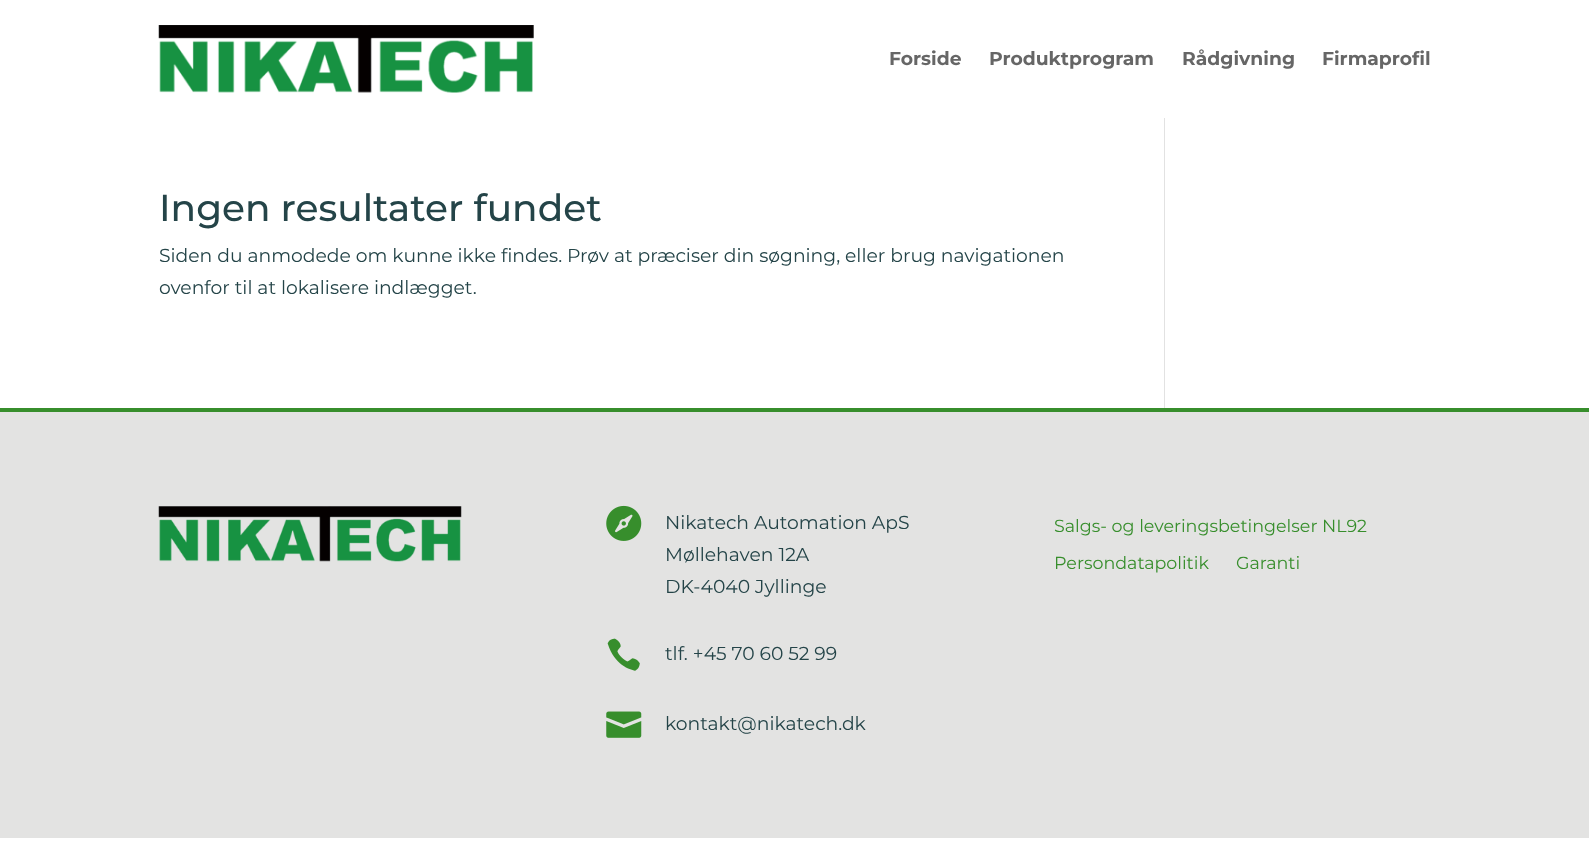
<svg xmlns="http://www.w3.org/2000/svg" width="1589" height="843">
<rect width="100%" height="100%" fill="#fff"/>
<image x="158" y="25" width="376" height="68" href="media/1.png"/>
<text x="889" y="65" style="font-family:Montserrat;font-size:18.75px;font-weight:bold;fill:#666">Forside</text>
<text x="989" y="65" style="font-family:Montserrat;font-size:18.75px;font-weight:bold;fill:#666">Produktprogram</text>
<text x="1182" y="65" style="font-family:Montserrat;font-size:18.75px;font-weight:bold;fill:#666">Rådgivning</text>
<text x="1322" y="65" style="font-family:Montserrat;font-size:18.75px;font-weight:bold;fill:#666">Firmaprofil</text>
<text x="159" y="221" style="font-family:Montserrat;font-size:37.5px;font-weight:500;fill:#244448">Ingen resultater fundet</text>
<text x="159" y="262" style="font-family:Montserrat;font-size:18.75px;fill:#244448">Siden du anmodede om kunne ikke findes. Prøv at præciser din søgning, eller brug navigationen</text>
<text x="159" y="294" style="font-family:Montserrat;font-size:18.75px;fill:#244448">ovenfor til at lokalisere indlægget.</text>
<rect x="1164" y="118" width="1" height="290" fill="#e2e2e2"/>
<rect y="412" width="1589" height="426" fill="#e3e3e2"/>
<rect y="408" width="1589" height="4" fill="#378e2c"/>
<image x="158" y="506" width="304" height="56" href="media/2.png"/>
<image x="606" y="505" width="36" height="36" href="media/3.png"/>
<text x="665" y="529" style="font-family:Montserrat;font-size:18.75px;fill:#244448">Nikatech Automation ApS</text>
<text x="665" y="561" style="font-family:Montserrat;font-size:18.75px;fill:#244448">Møllehaven 12A</text>
<text x="665" y="593" style="font-family:Montserrat;font-size:18.75px;fill:#244448">DK-4040 Jyllinge</text>
<image x="607" y="638" width="33" height="33" href="media/4.png"/>
<text x="665" y="660" style="font-family:Montserrat;font-size:18.75px;fill:#244448">tlf. +45 70 60 52 99</text>
<image x="606" y="711" width="36" height="27" href="media/5.png"/>
<text x="665" y="730" style="font-family:Montserrat;font-size:18.75px;fill:#244448">kontakt@nikatech.dk</text>
<text x="1054" y="532" style="font-family:Montserrat;font-size:17.5px;fill:#378e2c">Salgs- og leveringsbetingelser NL92</text>
<text x="1054" y="569" style="font-family:Montserrat;font-size:17.5px;fill:#378e2c">Persondatapolitik</text>
<text x="1236" y="569" style="font-family:Montserrat;font-size:17.5px;fill:#378e2c">Garanti</text>
</svg>
